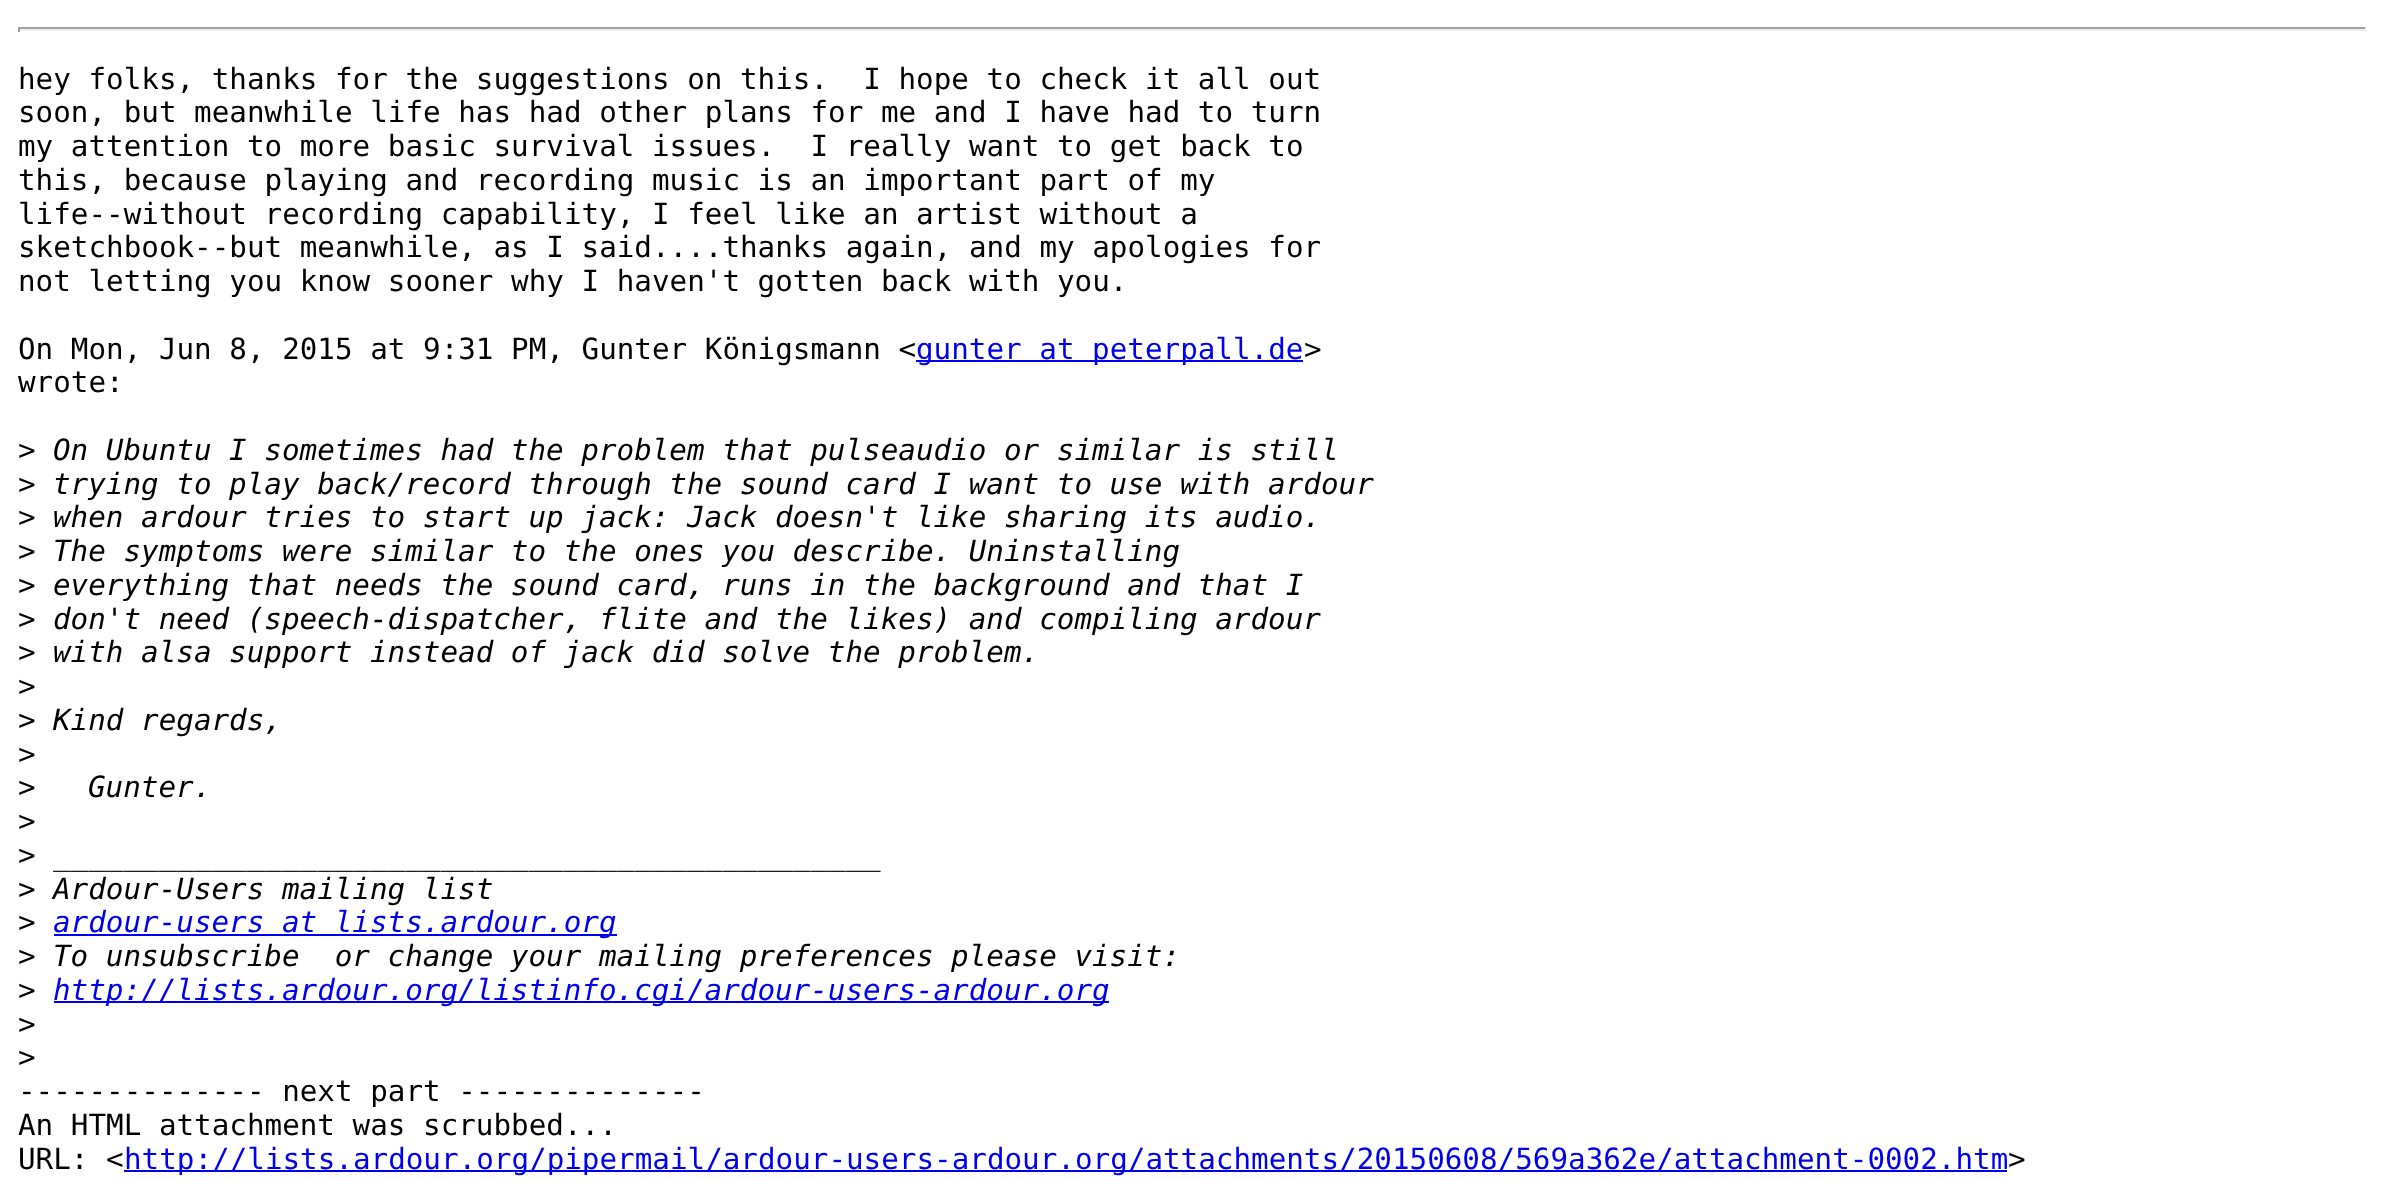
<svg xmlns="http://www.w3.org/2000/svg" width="2385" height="1192">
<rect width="100%" height="100%" fill="#fff"/>
<rect x="18" y="27" width="2349" height="2" fill="#9f9f9f"/>
<rect x="2365" y="27" width="2" height="5" fill="#eee"/>
<rect x="18" y="29" width="2349" height="2" fill="#eee"/>
<rect x="18" y="27" width="2" height="5" fill="#9f9f9f"/>
<text x="18" y="89" style="font-family:DejaVu Sans Mono;font-size:29.25px;fill:#000" xml:space="preserve">hey folks, thanks for the suggestions on this.  I hope to check it all out</text>
<text x="18" y="122" style="font-family:DejaVu Sans Mono;font-size:29.25px;fill:#000">soon, but meanwhile life has had other plans for me and I have had to turn</text>
<text x="18" y="156" style="font-family:DejaVu Sans Mono;font-size:29.25px;fill:#000" xml:space="preserve">my attention to more basic survival issues.  I really want to get back to</text>
<text x="18" y="190" style="font-family:DejaVu Sans Mono;font-size:29.25px;fill:#000">this, because playing and recording music is an important part of my</text>
<text x="18" y="224" style="font-family:DejaVu Sans Mono;font-size:29.25px;fill:#000">life--without recording capability, I feel like an artist without a</text>
<text x="18" y="257" style="font-family:DejaVu Sans Mono;font-size:29.25px;fill:#000">sketchbook--but meanwhile, as I said....thanks again, and my apologies for</text>
<text x="18" y="291" style="font-family:DejaVu Sans Mono;font-size:29.25px;fill:#000">not letting you know sooner why I haven't gotten back with you.</text>
<text x="18" y="359" style="font-family:DejaVu Sans Mono;font-size:29.25px;fill:#000">On Mon, Jun 8, 2015 at 9:31 PM, Gunter Königsmann &lt;</text>
<rect x="916" y="360" width="387" height="2" fill="#00e"/>
<text x="916" y="359" style="font-family:DejaVu Sans Mono;font-size:29.25px;fill:#00e">gunter at peterpall.de</text>
<text x="1304" y="359" style="font-family:DejaVu Sans Mono;font-size:29.25px;fill:#000">&gt;</text>
<text x="18" y="392" style="font-family:DejaVu Sans Mono;font-size:29.25px;fill:#000">wrote:</text>
<text x="18" y="460" style="font-family:DejaVu Sans Mono;font-size:29.25px;fill:#000">&gt;</text>
<text x="53" y="460" style="font-family:DejaVu Sans Mono;font-size:29.25px;font-style:italic;fill:#000">On Ubuntu I sometimes had the problem that pulseaudio or similar is still</text>
<text x="18" y="494" style="font-family:DejaVu Sans Mono;font-size:29.25px;fill:#000">&gt;</text>
<text x="53" y="494" style="font-family:DejaVu Sans Mono;font-size:29.25px;font-style:italic;fill:#000">trying to play back/record through the sound card I want to use with ardour</text>
<text x="18" y="527" style="font-family:DejaVu Sans Mono;font-size:29.25px;fill:#000">&gt;</text>
<text x="53" y="527" style="font-family:DejaVu Sans Mono;font-size:29.25px;font-style:italic;fill:#000">when ardour tries to start up jack: Jack doesn't like sharing its audio.</text>
<text x="18" y="561" style="font-family:DejaVu Sans Mono;font-size:29.25px;fill:#000">&gt;</text>
<text x="53" y="561" style="font-family:DejaVu Sans Mono;font-size:29.25px;font-style:italic;fill:#000">The symptoms were similar to the ones you describe. Uninstalling</text>
<text x="18" y="595" style="font-family:DejaVu Sans Mono;font-size:29.25px;fill:#000">&gt;</text>
<text x="53" y="595" style="font-family:DejaVu Sans Mono;font-size:29.25px;font-style:italic;fill:#000">everything that needs the sound card, runs in the background and that I</text>
<text x="18" y="629" style="font-family:DejaVu Sans Mono;font-size:29.25px;fill:#000">&gt;</text>
<text x="53" y="629" style="font-family:DejaVu Sans Mono;font-size:29.25px;font-style:italic;fill:#000">don't need (speech-dispatcher, flite and the likes) and compiling ardour</text>
<text x="18" y="662" style="font-family:DejaVu Sans Mono;font-size:29.25px;fill:#000">&gt;</text>
<text x="53" y="662" style="font-family:DejaVu Sans Mono;font-size:29.25px;font-style:italic;fill:#000">with alsa support instead of jack did solve the problem.</text>
<text x="18" y="696" style="font-family:DejaVu Sans Mono;font-size:29.25px;fill:#000">&gt;</text>
<text x="18" y="730" style="font-family:DejaVu Sans Mono;font-size:29.25px;fill:#000">&gt;</text>
<text x="53" y="730" style="font-family:DejaVu Sans Mono;font-size:29.25px;font-style:italic;fill:#000">Kind regards,</text>
<text x="18" y="764" style="font-family:DejaVu Sans Mono;font-size:29.25px;fill:#000">&gt;</text>
<text x="18" y="797" style="font-family:DejaVu Sans Mono;font-size:29.25px;fill:#000">&gt;</text>
<text x="88" y="797" style="font-family:DejaVu Sans Mono;font-size:29.25px;font-style:italic;fill:#000">Gunter.</text>
<text x="18" y="831" style="font-family:DejaVu Sans Mono;font-size:29.25px;fill:#000">&gt;</text>
<text x="18" y="865" style="font-family:DejaVu Sans Mono;font-size:29.25px;fill:#000">&gt;</text>
<text x="53" y="865" style="font-family:DejaVu Sans Mono;font-size:29.25px;font-style:italic;fill:#000">_______________________________________________</text>
<text x="18" y="899" style="font-family:DejaVu Sans Mono;font-size:29.25px;fill:#000">&gt;</text>
<text x="53" y="899" style="font-family:DejaVu Sans Mono;font-size:29.25px;font-style:italic;fill:#000">Ardour-Users mailing list</text>
<text x="18" y="932" style="font-family:DejaVu Sans Mono;font-size:29.25px;fill:#000">&gt;</text>
<rect x="54" y="934" width="563" height="2" fill="#00e"/>
<text x="53" y="932" style="font-family:DejaVu Sans Mono;font-size:29.25px;font-style:italic;fill:#00e">ardour-users at lists.ardour.org</text>
<text x="18" y="966" style="font-family:DejaVu Sans Mono;font-size:29.25px;fill:#000">&gt;</text>
<text x="53" y="966" style="font-family:DejaVu Sans Mono;font-size:29.25px;font-style:italic;fill:#000" xml:space="preserve">To unsubscribe  or change your mailing preferences please visit:</text>
<text x="18" y="1000" style="font-family:DejaVu Sans Mono;font-size:29.25px;fill:#000">&gt;</text>
<rect x="54" y="1001" width="1055" height="2" fill="#00e"/>
<text x="53" y="1000" style="font-family:DejaVu Sans Mono;font-size:29.25px;font-style:italic;fill:#00e">http://lists.ardour.org/listinfo.cgi/ardour-users-ardour.org</text>
<text x="18" y="1034" style="font-family:DejaVu Sans Mono;font-size:29.25px;fill:#000">&gt;</text>
<text x="18" y="1067" style="font-family:DejaVu Sans Mono;font-size:29.25px;fill:#000">&gt;</text>
<text x="18" y="1101" style="font-family:DejaVu Sans Mono;font-size:29.25px;fill:#000">-------------- next part --------------</text>
<text x="18" y="1135" style="font-family:DejaVu Sans Mono;font-size:29.25px;fill:#000">An HTML attachment was scrubbed...</text>
<text x="18" y="1169" style="font-family:DejaVu Sans Mono;font-size:29.25px;fill:#000">URL: &lt;</text>
<rect x="124" y="1170" width="1883" height="2" fill="#00e"/>
<text x="124" y="1169" style="font-family:DejaVu Sans Mono;font-size:29.25px;fill:#00e">http://lists.ardour.org/pipermail/ardour-users-ardour.org/attachments/20150608/569a362e/attachment-0002.htm</text>
<text x="2008" y="1169" style="font-family:DejaVu Sans Mono;font-size:29.25px;fill:#000">&gt;</text>
</svg>
